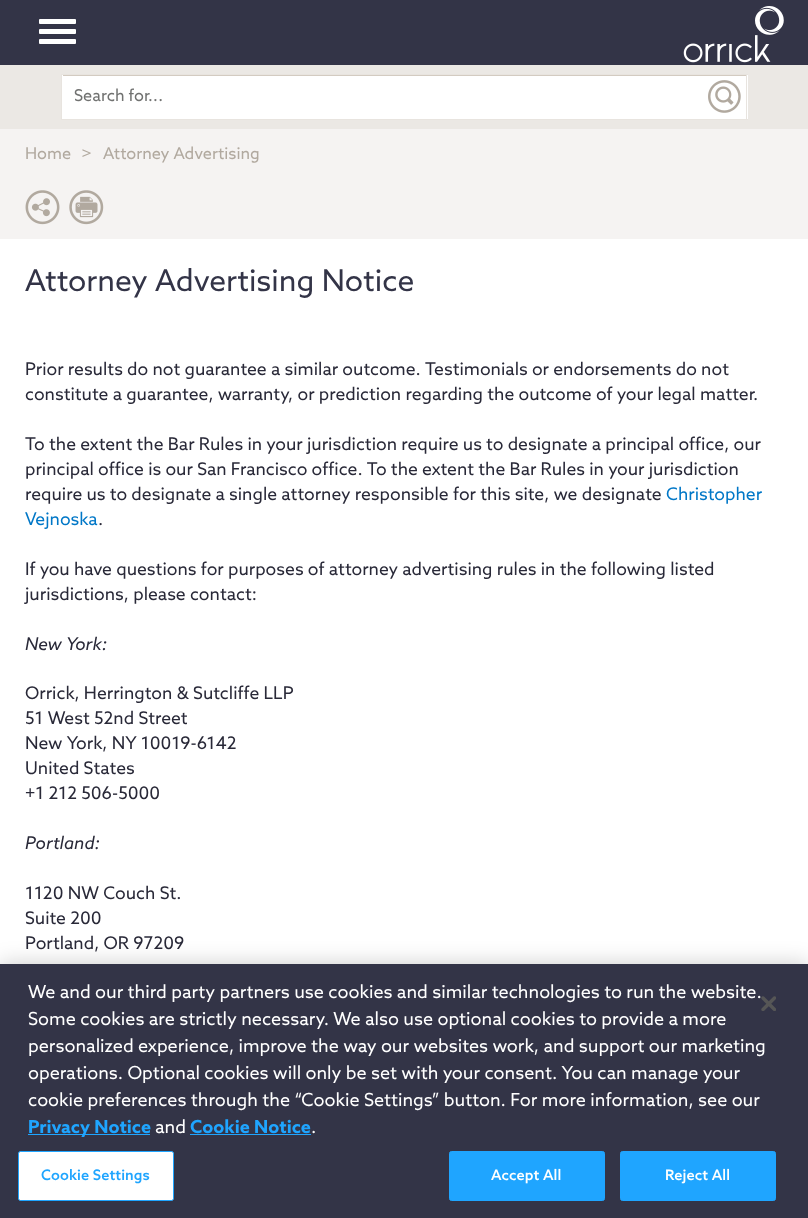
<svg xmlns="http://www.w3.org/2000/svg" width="808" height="1218">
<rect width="100%" height="100%" fill="#fff"/>
<rect width="808" height="65" fill="#333447"/>
<rect x="39" y="19" width="37" height="5" rx="1" fill="#fff"/>
<rect x="39" y="29" width="37" height="5" rx="1" fill="#fff"/>
<rect x="39" y="39" width="37" height="5" rx="1" fill="#fff"/>
<image x="683" y="6" width="101" height="57" href="media/1.png"/>
<rect y="65" width="808" height="64" fill="#ebe8e4"/>
<rect x="62" y="75" width="641" height="44" fill="#fff"/>
<rect x="63" y="75" width="641" height="1" fill="#d3cbc1"/>
<rect x="61" y="74" width="687" height="1" fill="#e8e4df"/>
<rect x="61" y="119" width="643" height="1" fill="#e8e4df"/>
<rect x="61" y="74" width="1" height="46" fill="#e8e4df"/>
<text x="74" y="101" style="font-family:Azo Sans;font-size:16.25px;fill:#717271">Search for...</text>
<rect x="703" y="75" width="45" height="44" fill="#fff"/>
<rect x="703" y="75" width="43" height="1" fill="#d3cbc1"/>
<rect x="746" y="74" width="1" height="46" fill="#e8e4df"/>
<rect x="703" y="119" width="45" height="1" fill="#e8e4df"/>
<image x="708" y="80" width="33" height="33" href="media/2.png"/>
<rect y="129" width="808" height="110" fill="#f5f3f2"/>
<text x="25" y="159" style="font-family:Azo Sans;font-size:16.25px;fill:#b1a99f">Home</text>
<text x="81" y="159" style="font-family:Azo Sans;font-size:16.25px;fill:#b1a99f">&gt;</text>
<text x="103" y="159" style="font-family:Azo Sans;font-size:16.25px;fill:#b1a99f">Attorney Advertising</text>
<image x="25" y="190" width="35" height="35" href="media/3.png"/>
<image x="69" y="190" width="35" height="35" href="media/4.png"/>
<text x="25" y="291" style="font-family:Azo Sans;font-size:30px;fill:#333447">Attorney Advertising Notice</text>
<text x="25" y="375" style="font-family:Azo Sans;font-size:17.5px;fill:#292938">Prior results do not guarantee a similar outcome. Testimonials or endorsements do not</text>
<text x="25" y="400" style="font-family:Azo Sans;font-size:17.5px;fill:#292938">constitute a guarantee, warranty, or prediction regarding the outcome of your legal matter.</text>
<text x="25" y="450" style="font-family:Azo Sans;font-size:17.5px;fill:#292938">To the extent the Bar Rules in your jurisdiction require us to designate a principal office, our</text>
<text x="25" y="475" style="font-family:Azo Sans;font-size:17.5px;fill:#292938">principal office is our San Francisco office. To the extent the Bar Rules in your jurisdiction</text>
<text x="25" y="500" style="font-family:Azo Sans;font-size:17.5px;fill:#292938">require us to designate a single attorney responsible for this site, we designate</text>
<text x="666" y="500" style="font-family:Azo Sans;font-size:17.5px;fill:#0077c7">Christopher</text>
<text x="25" y="525" style="font-family:Azo Sans;font-size:17.5px;fill:#0077c7">Vejnoska</text>
<text x="98" y="525" style="font-family:Azo Sans;font-size:17.5px;fill:#292938">.</text>
<text x="25" y="575" style="font-family:Azo Sans;font-size:17.5px;fill:#292938">If you have questions for purposes of attorney advertising rules in the following listed</text>
<text x="25" y="600" style="font-family:Azo Sans;font-size:17.5px;fill:#292938">jurisdictions, please contact:</text>
<text x="25" y="650" style="font-family:Azo Sans;font-size:17.5px;font-style:italic;fill:#292938">New York:</text>
<text x="25" y="699" style="font-family:Azo Sans;font-size:17.5px;fill:#292938">Orrick, Herrington &amp; Sutcliffe LLP</text>
<text x="25" y="724" style="font-family:Azo Sans;font-size:17.5px;fill:#292938">51 West 52nd Street</text>
<text x="25" y="749" style="font-family:Azo Sans;font-size:17.5px;fill:#292938">New York, NY 10019-6142</text>
<text x="25" y="774" style="font-family:Azo Sans;font-size:17.5px;fill:#292938">United States</text>
<text x="25" y="799" style="font-family:Azo Sans;font-size:17.5px;fill:#292938">+1 212 506-5000</text>
<text x="25" y="849" style="font-family:Azo Sans;font-size:17.5px;font-style:italic;fill:#292938">Portland:</text>
<text x="25" y="899" style="font-family:Azo Sans;font-size:17.5px;fill:#292938">1120 NW Couch St.</text>
<text x="25" y="924" style="font-family:Azo Sans;font-size:17.5px;fill:#292938">Suite 200</text>
<text x="25" y="949" style="font-family:Azo Sans;font-size:17.5px;fill:#292938">Portland, OR 97209</text>
<rect y="964" width="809" height="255" fill="#00000033" filter="blur(11px)"/>
<rect y="964" width="808" height="254" fill="#333447"/>
<text x="28" y="998" style="font-family:Azo Sans;font-size:18px;fill:#fff">We and our third party partners use cookies and similar technologies to run the website.</text>
<text x="28" y="1025" style="font-family:Azo Sans;font-size:18px;fill:#fff">Some cookies are strictly necessary. We also use optional cookies to provide a more</text>
<text x="28" y="1052" style="font-family:Azo Sans;font-size:18px;fill:#fff">personalized experience, improve the way our websites work, and support our marketing</text>
<text x="28" y="1079" style="font-family:Azo Sans;font-size:18px;fill:#fff">operations. Optional cookies will only be set with your consent. You can manage your</text>
<text x="28" y="1106" style="font-family:Azo Sans;font-size:18px;fill:#fff">cookie preferences through the “Cookie Settings” button. For more information, see our</text>
<rect x="28" y="1134" width="122" height="1" fill="#1fa5ff"/>
<text x="28" y="1133" style="font-family:Azo Sans;font-size:18px;font-weight:bold;fill:#1fa5ff">Privacy Notice</text>
<text x="155" y="1133" style="font-family:Azo Sans;font-size:18px;fill:#fff">and</text>
<text x="190" y="1133" style="font-family:Azo Sans;font-size:18px;font-weight:bold;fill:#1fa5ff">Cookie Notice</text>
<rect x="190" y="1134" width="121" height="1" fill="#1fa5ff"/>
<text x="311" y="1133" style="font-family:Azo Sans;font-size:18px;fill:#fff">.</text>
<rect x="18.5" y="1151.5" width="155" height="49" rx="2" fill="#fff" stroke="#1fa5ff"/>
<text x="41" y="1180" style="font-family:Azo Sans;font-size:14.5px;font-weight:500;letter-spacing:0.1px;fill:#1fa5ff">Cookie Settings</text>
<rect x="449.5" y="1151.5" width="155" height="49" rx="2" fill="#1fa5ff" stroke="#1fa5ff"/>
<text x="491" y="1180" style="font-family:Azo Sans;font-size:14.5px;font-weight:500;letter-spacing:0.1px;fill:#fff">Accept All</text>
<rect x="620.5" y="1151.5" width="155" height="49" rx="2" fill="#1fa5ff" stroke="#1fa5ff"/>
<text x="665" y="1180" style="font-family:Azo Sans;font-size:14.5px;font-weight:500;letter-spacing:0.1px;fill:#fff">Reject All</text>
<image x="761" y="996" width="15" height="15" href="media/5.png"/>
</svg>
